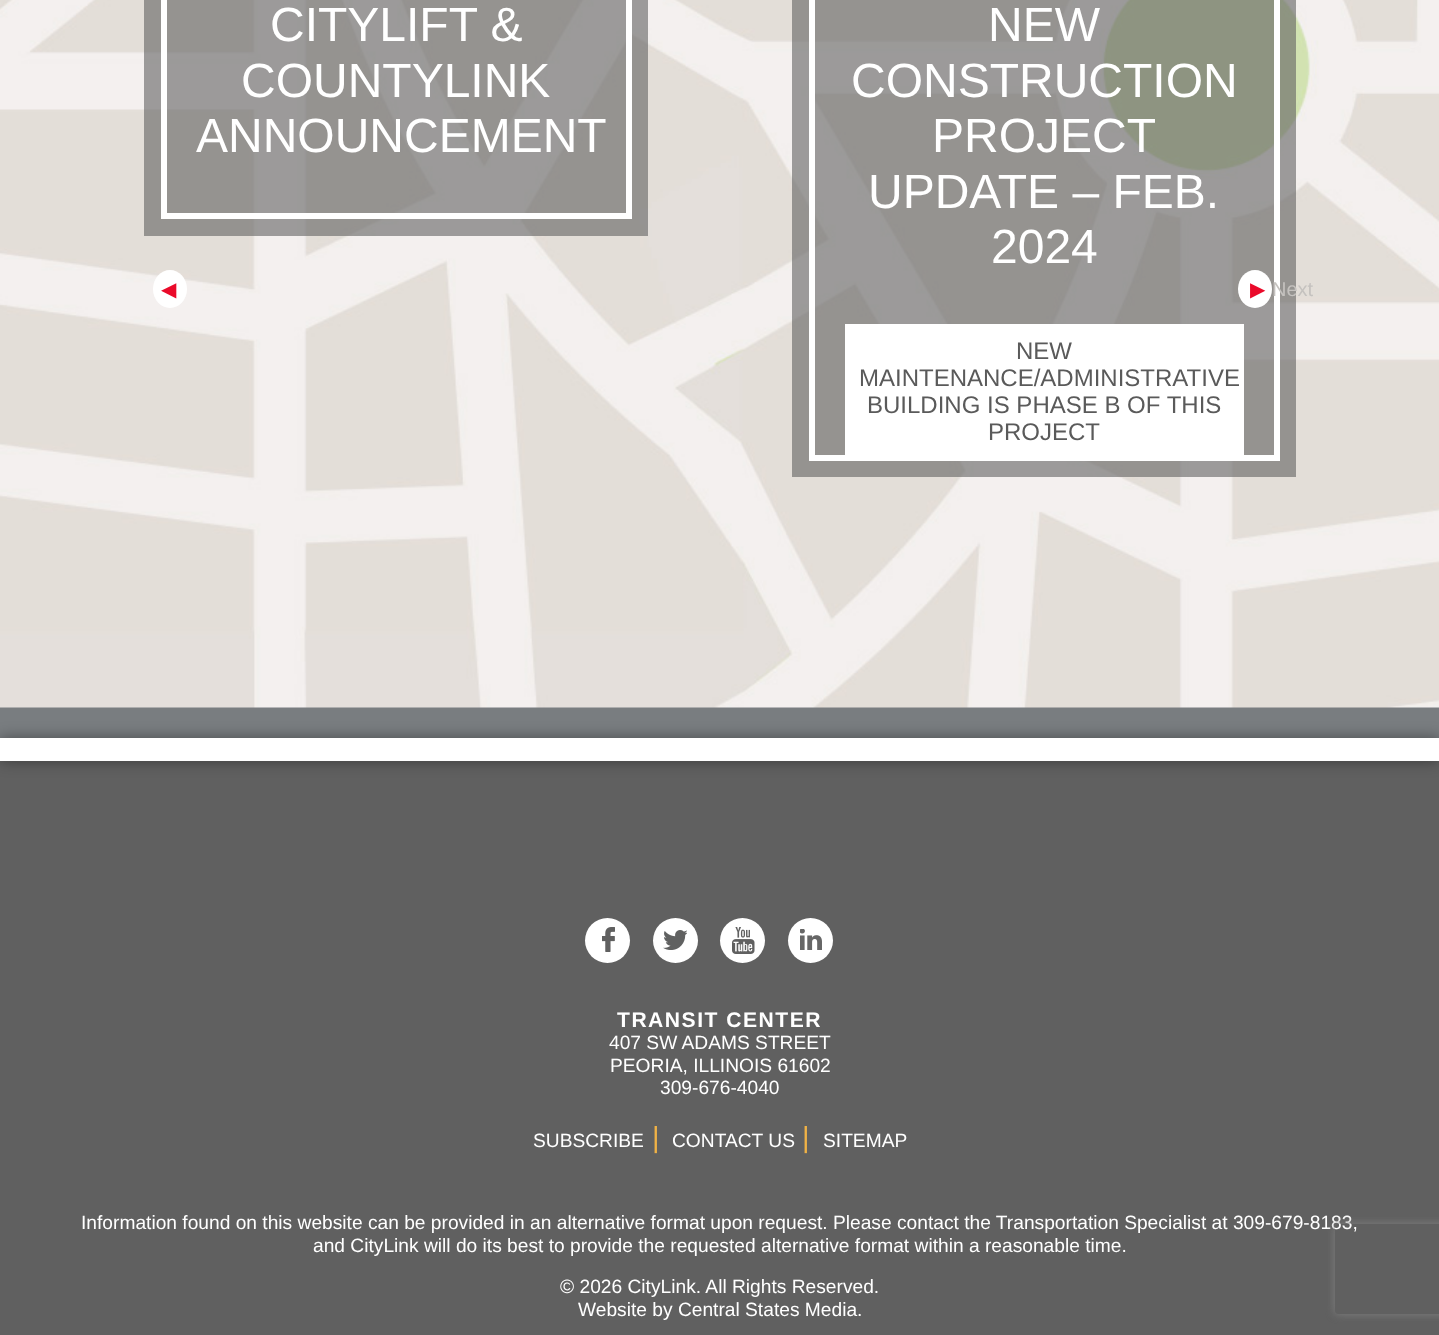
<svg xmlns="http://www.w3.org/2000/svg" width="1439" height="1335">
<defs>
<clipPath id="clip1"><path d="M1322 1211h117v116h-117zm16 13h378c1.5 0 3 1.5 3 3v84c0 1.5-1.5 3-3 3h-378c-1.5 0-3-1.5-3-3v-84c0-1.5 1.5-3 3-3z" clip-rule="evenodd"/></clipPath>
</defs>
<rect width="100%" height="100%" fill="#797d80"/>
<image x="0" y="0" width="1439" height="708" href="media/1.png"/>
<ellipse cx="170" cy="289" rx="17" ry="19" fill="#fff"/>
<text x="161" y="296" style="font-family:DejaVu Sans;font-size:20px;fill:#ea0a2a">◀</text>
<rect x="144" width="504" height="236" fill="#60606099"/>
<rect x="164" y="-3" width="465" height="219" fill="none" stroke="#fff" stroke-width="6"/>
<text x="270" y="41" style="font-family:Liberation Sans;font-size:48px;fill:#fff">CITYLIFT &amp;</text>
<text x="241" y="97" style="font-family:Liberation Sans;font-size:48px;fill:#fff">COUNTYLINK</text>
<text x="196" y="152" style="font-family:Liberation Sans;font-size:48px;fill:#fff">ANNOUNCEMENT</text>
<rect x="792" width="504" height="477" fill="#60606099"/>
<rect x="812" y="-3" width="465" height="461" fill="none" stroke="#fff" stroke-width="6"/>
<text x="988" y="41" style="font-family:Liberation Sans;font-size:48px;fill:#fff">NEW</text>
<text x="851" y="97" style="font-family:Liberation Sans;font-size:48px;fill:#fff">CONSTRUCTION</text>
<text x="932" y="152" style="font-family:Liberation Sans;font-size:48px;fill:#fff">PROJECT</text>
<text x="868" y="208" style="font-family:Liberation Sans;font-size:48px;fill:#fff">UPDATE – FEB.</text>
<text x="991" y="263" style="font-family:Liberation Sans;font-size:48px;fill:#fff">2024</text>
<rect x="845" y="324" width="399" height="131" fill="#fff"/>
<text x="1016" y="359" style="font-family:Liberation Sans;font-size:24px;fill:#5a5a5a">NEW</text>
<text x="859" y="386" style="font-family:Liberation Sans;font-size:24px;fill:#5a5a5a">MAINTENANCE/ADMINISTRATIVE</text>
<text x="867" y="413" style="font-family:Liberation Sans;font-size:24px;fill:#5a5a5a">BUILDING IS PHASE B OF THIS</text>
<text x="988" y="440" style="font-family:Liberation Sans;font-size:24px;fill:#5a5a5a">PROJECT</text>
<ellipse cx="1255" cy="289" rx="17" ry="19" fill="#fff"/>
<text x="1250" y="296" style="font-family:DejaVu Sans;font-size:20px;fill:#ea0a2a">▶</text>
<text x="1272" y="296" style="font-family:Liberation Sans;font-size:20px;fill:#c5c2bf">Next</text>
<rect y="761" width="1439" height="574" fill="#606060"/>
<rect y="738" width="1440" height="23" fill="#00000066" filter="blur(7.5px)"/>
<rect y="738" width="1439" height="23" fill="#fff"/>
<circle cx="607.5" cy="940.5" r="22.5" fill="#fff"/>
<image x="602" y="927" width="13" height="25" href="media/2.png"/>
<circle cx="675.5" cy="940.5" r="22.5" fill="#fff"/>
<image x="663" y="930" width="24" height="20" href="media/3.png"/>
<circle cx="742.5" cy="940.5" r="22.5" fill="#fff"/>
<image x="732" y="927" width="23" height="27" href="media/4.png"/>
<circle cx="810.5" cy="940.5" r="22.5" fill="#fff"/>
<image x="800" y="929" width="22" height="21" href="media/5.png"/>
<text x="617" y="1027" style="font-family:Liberation Sans;font-size:21.1px;font-weight:bold;letter-spacing:1.5px;fill:#fff">TRANSIT CENTER</text>
<text x="609" y="1049" style="font-family:Liberation Sans;font-size:19.2px;fill:#fff">407 SW ADAMS STREET</text>
<text x="610" y="1072" style="font-family:Liberation Sans;font-size:19.2px;fill:#fff">PEORIA, ILLINOIS 61602</text>
<text x="660" y="1094" style="font-family:Liberation Sans;font-size:19.2px;fill:#fff">309-676-4040</text>
<text x="533" y="1147" style="font-family:Liberation Sans;font-size:19.2px;fill:#fff">SUBSCRIBE</text>
<text x="652" y="1147" style="font-family:Liberation Sans;font-size:29px;fill:#f0b246">|</text>
<text x="672" y="1147" style="font-family:Liberation Sans;font-size:19.2px;fill:#fff">CONTACT US</text>
<text x="802" y="1147" style="font-family:Liberation Sans;font-size:29px;fill:#f0b246">|</text>
<text x="823" y="1147" style="font-family:Liberation Sans;font-size:19.2px;fill:#fff">SITEMAP</text>
<text x="81" y="1229" style="font-family:Liberation Sans;font-size:19.2px;fill:#fff">Information found on this website can be provided in an alternative format upon request. Please contact the Transportation Specialist at 309-679-8183,</text>
<text x="313" y="1252" style="font-family:Liberation Sans;font-size:19.2px;fill:#fff">and CityLink will do its best to provide the requested alternative format within a reasonable time.</text>
<text x="560" y="1293" style="font-family:Liberation Sans;font-size:19.2px;fill:#fff">© 2026 CityLink. All Rights Reserved.</text>
<text x="578" y="1316" style="font-family:Liberation Sans;font-size:19.2px;fill:#fff">Website by Central States Media.</text>
<g clip-path="url(#clip1)">
<rect x="1335" y="1224" width="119" height="90" rx="3" fill="#808080" filter="blur(4px)"/>
</g>
</svg>
